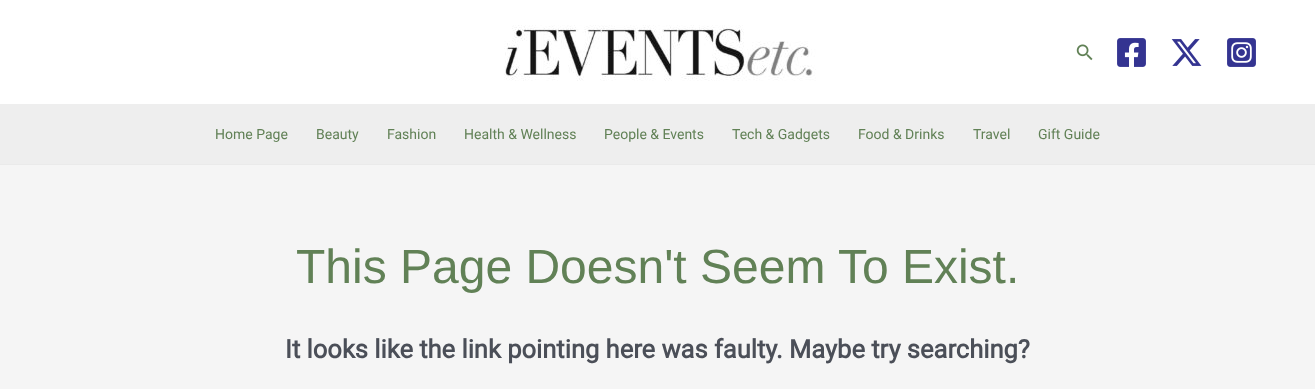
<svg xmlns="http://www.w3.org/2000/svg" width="1315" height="389">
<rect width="100%" height="100%" fill="#f5f5f5"/>
<rect width="1315" height="104" fill="#fff"/>
<image x="504" y="25" width="312" height="56" href="media/1.png"/>
<image x="1076" y="44" width="17" height="17" href="media/2.png"/>
<image x="1117" y="38" width="29" height="29" href="media/3.png"/>
<image x="1171" y="39" width="31" height="27" href="media/4.png"/>
<image x="1227" y="38" width="29" height="29" href="media/5.png"/>
<rect y="104" width="1315" height="60" fill="#eee"/>
<rect y="164" width="1315" height="1" fill="#eaeaea"/>
<text x="215" y="139" style="font-family:Roboto;font-size:14px;fill:#618156">Home Page</text>
<text x="316" y="139" style="font-family:Roboto;font-size:14px;fill:#618156">Beauty</text>
<text x="387" y="139" style="font-family:Roboto;font-size:14px;fill:#618156">Fashion</text>
<text x="464" y="139" style="font-family:Roboto;font-size:14px;fill:#618156">Health &amp; Wellness</text>
<text x="604" y="139" style="font-family:Roboto;font-size:14px;fill:#618156">People &amp; Events</text>
<text x="732" y="139" style="font-family:Roboto;font-size:14px;fill:#618156">Tech &amp; Gadgets</text>
<text x="858" y="139" style="font-family:Roboto;font-size:14px;fill:#618156">Food &amp; Drinks</text>
<text x="973" y="139" style="font-family:Roboto;font-size:14px;fill:#618156">Travel</text>
<text x="1038" y="139" style="font-family:Roboto;font-size:14px;fill:#618156">Gift Guide</text>
<text x="296" y="283" style="font-family:Liberation Sans;font-size:48px;fill:#618156">This Page Doesn't Seem To Exist.</text>
<text x="285" y="358" style="font-family:Roboto;font-size:25.5px;font-weight:bold;fill:#4b4f58">It looks like the link pointing here was faulty. Maybe try searching?</text>
</svg>
